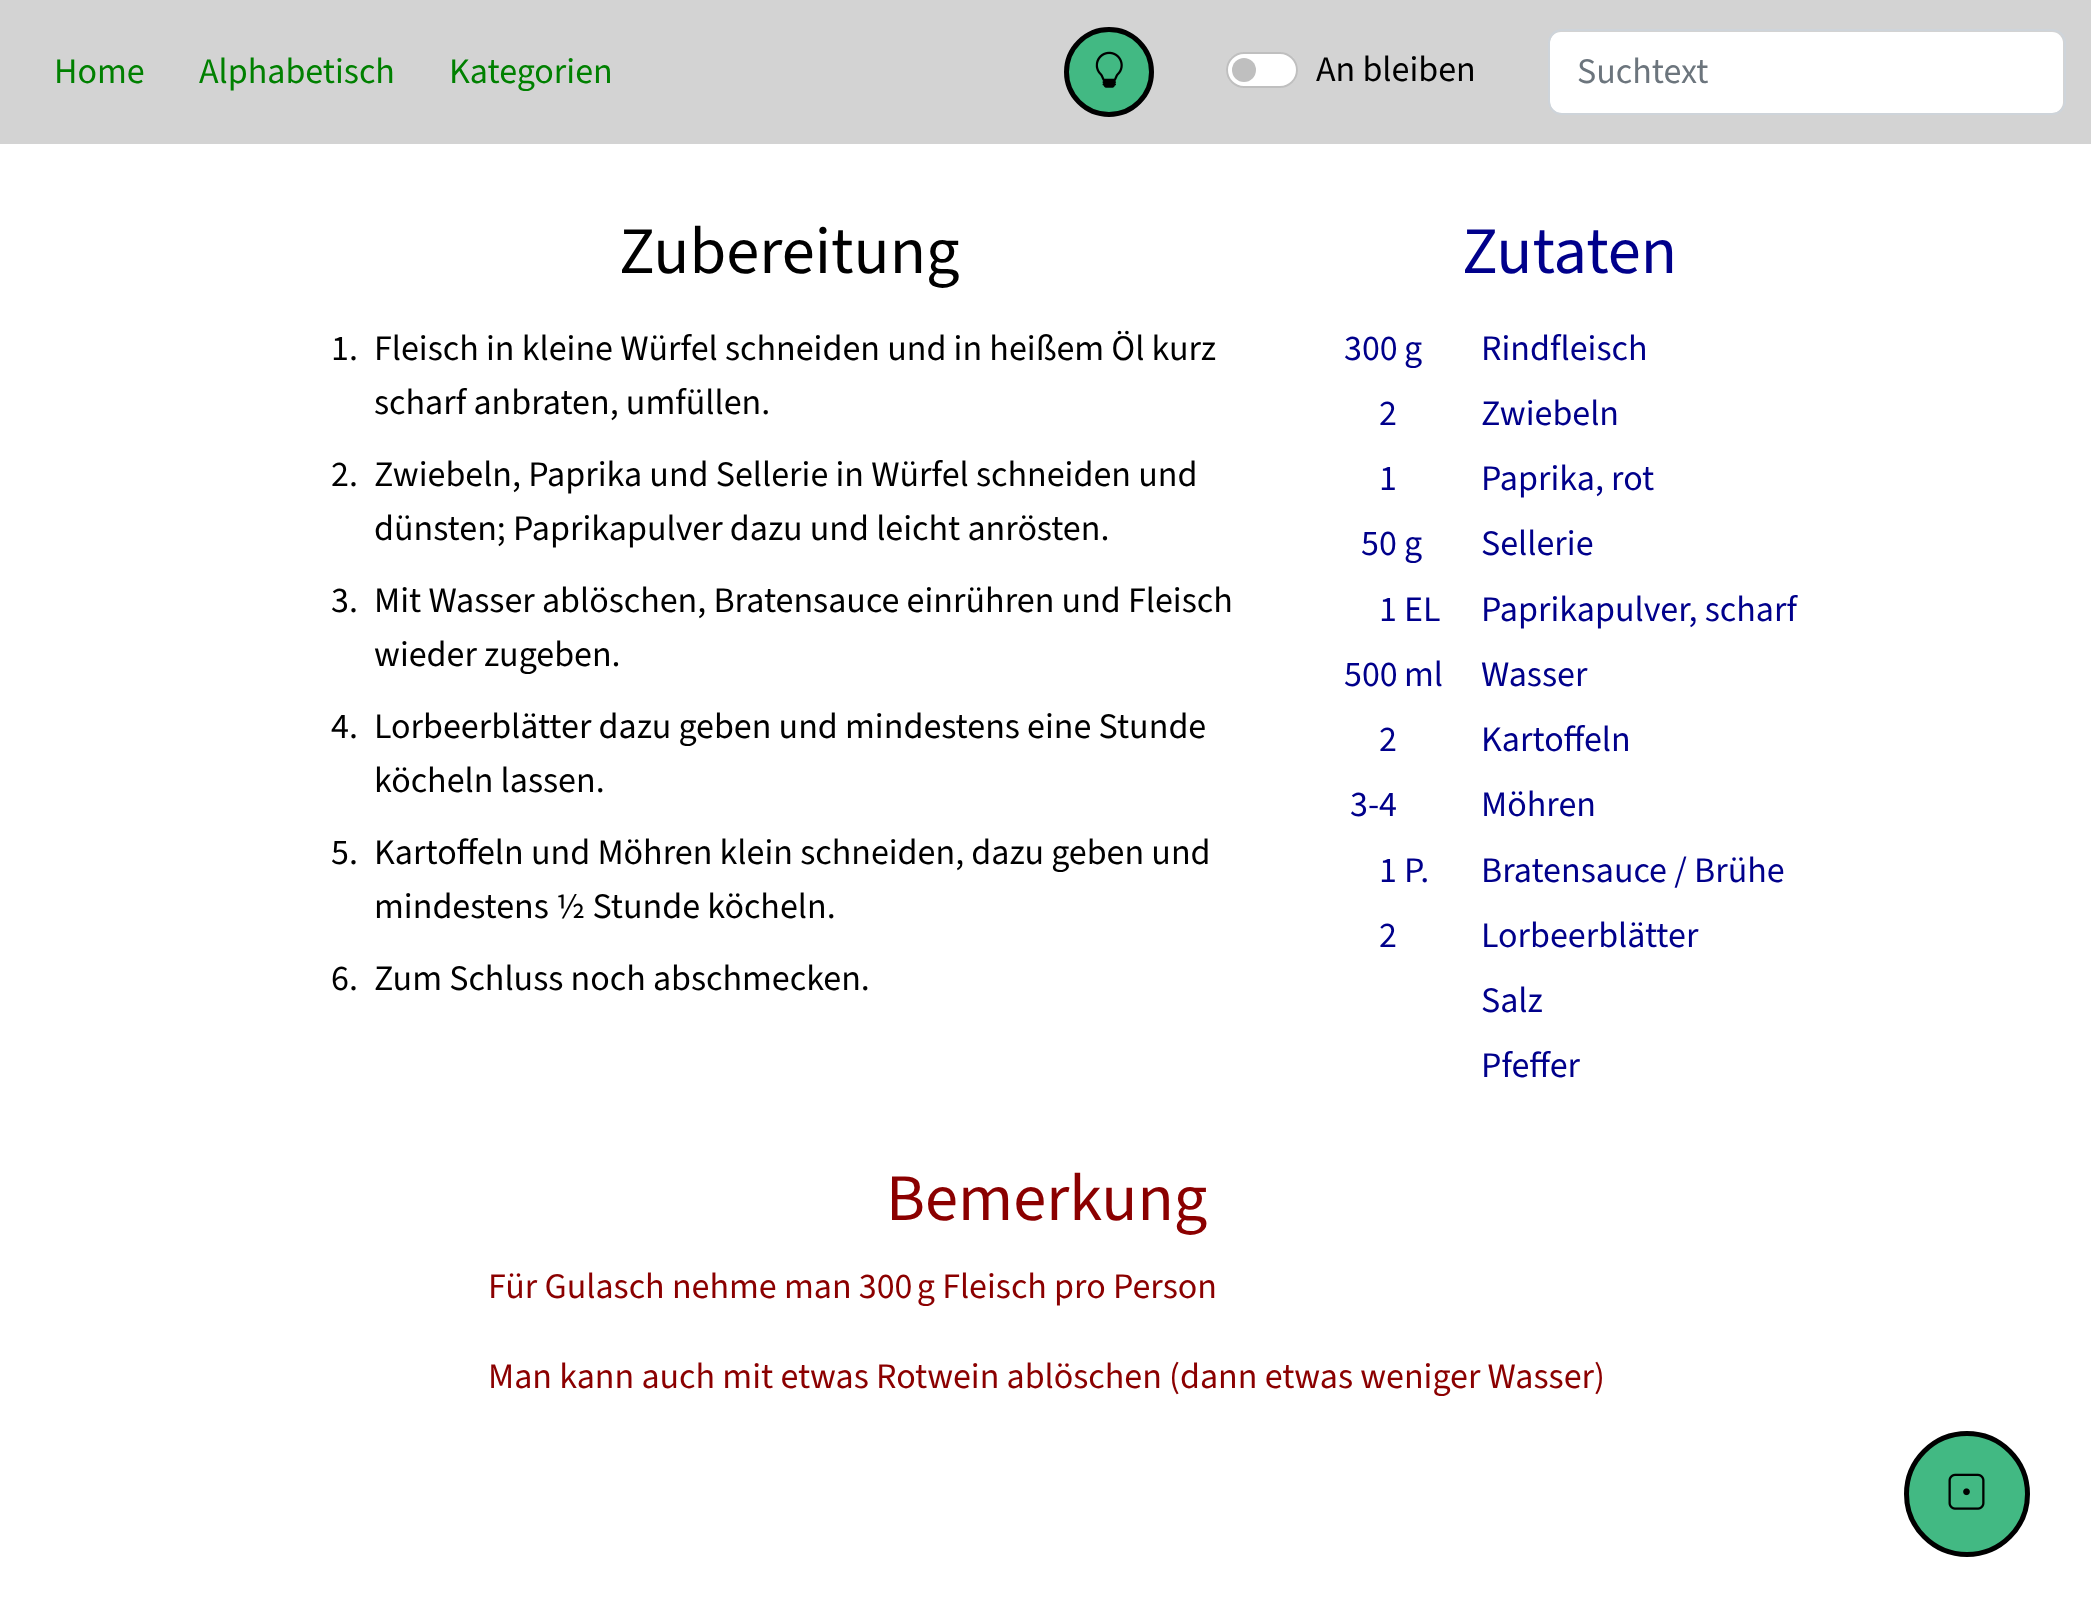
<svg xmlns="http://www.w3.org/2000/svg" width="2091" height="1620">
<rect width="100%" height="100%" fill="#fff"/>
<rect width="2091" height="144" fill="#d3d3d3"/>
<text x="54" y="83" style="font-family:'Source Sans 3';font-size:36px;fill:#008000">Home</text>
<text x="199" y="83" style="font-family:'Source Sans 3';font-size:36px;fill:#008000">Alphabetisch</text>
<text x="449" y="83" style="font-family:'Source Sans 3';font-size:36px;fill:#008000">Kategorien</text>
<circle cx="1109" cy="72" r="42.5" fill="#42b983" stroke="#000" stroke-width="5"/>
<image x="1095" y="51" width="28" height="37" href="media/1.png"/>
<rect x="1226" y="52" width="72" height="36" rx="18" fill="#fff"/>
<circle cx="1244" cy="70" r="12" fill="#bfbfbf"/>
<rect x="1227" y="53" width="70" height="34" rx="17" fill="none" stroke="#00000040" stroke-width="2"/>
<text x="1316" y="81" style="font-family:'Source Sans 3';font-size:36px;fill:#000">An bleiben</text>
<rect x="1550" y="32" width="513" height="81" rx="11" fill="#fff"/>
<rect x="1549" y="30" width="516" height="84" rx="13" fill="none" stroke="#ced4da" stroke-width="2"/>
<text x="1577" y="83" style="font-family:'Source Sans 3';font-size:36px;fill:#6c757d">Suchtext</text>
<text x="619" y="273" style="font-family:'Source Sans 3';font-size:66.5px;fill:#000">Zubereitung</text>
<text x="331" y="360" style="font-family:'Source Sans 3';font-size:36px;fill:#000">1.</text>
<text x="374" y="360" style="font-family:'Source Sans 3';font-size:36px;fill:#000">Fleisch in kleine Würfel schneiden und in heißem Öl kurz</text>
<text x="374" y="414" style="font-family:'Source Sans 3';font-size:36px;fill:#000">scharf anbraten, umfüllen.</text>
<text x="331" y="486" style="font-family:'Source Sans 3';font-size:36px;fill:#000">2.</text>
<text x="374" y="486" style="font-family:'Source Sans 3';font-size:36px;fill:#000">Zwiebeln, Paprika und Sellerie in Würfel schneiden und</text>
<text x="374" y="540" style="font-family:'Source Sans 3';font-size:36px;fill:#000">dünsten; Paprikapulver dazu und leicht anrösten.</text>
<text x="331" y="612" style="font-family:'Source Sans 3';font-size:36px;fill:#000">3.</text>
<text x="374" y="612" style="font-family:'Source Sans 3';font-size:36px;fill:#000">Mit Wasser ablöschen, Bratensauce einrühren und Fleisch</text>
<text x="374" y="666" style="font-family:'Source Sans 3';font-size:36px;fill:#000">wieder zugeben.</text>
<text x="331" y="738" style="font-family:'Source Sans 3';font-size:36px;fill:#000">4.</text>
<text x="374" y="738" style="font-family:'Source Sans 3';font-size:36px;fill:#000">Lorbeerblätter dazu geben und mindestens eine Stunde</text>
<text x="374" y="792" style="font-family:'Source Sans 3';font-size:36px;fill:#000">köcheln lassen.</text>
<text x="331" y="864" style="font-family:'Source Sans 3';font-size:36px;fill:#000">5.</text>
<text x="374" y="864" style="font-family:'Source Sans 3';font-size:36px;fill:#000">Kartoffeln und Möhren klein schneiden, dazu geben und</text>
<text x="374" y="918" style="font-family:'Source Sans 3';font-size:36px;fill:#000">mindestens ½ Stunde köcheln.</text>
<text x="331" y="990" style="font-family:'Source Sans 3';font-size:36px;fill:#000">6.</text>
<text x="374" y="990" style="font-family:'Source Sans 3';font-size:36px;fill:#000">Zum Schluss noch abschmecken.</text>
<text x="1462" y="273" style="font-family:'Source Sans 3';font-size:66.5px;fill:#00008b">Zutaten</text>
<text x="1344" y="360" style="font-family:'Source Sans 3';font-size:36px;fill:#00008b">300</text>
<text x="1404" y="360" style="font-family:'Source Sans 3';font-size:36px;fill:#00008b">g</text>
<text x="1481" y="360" style="font-family:'Source Sans 3';font-size:36px;fill:#00008b">Rindfleisch</text>
<text x="1379" y="425" style="font-family:'Source Sans 3';font-size:36px;fill:#00008b">2</text>
<text x="1481" y="425" style="font-family:'Source Sans 3';font-size:36px;fill:#00008b">Zwiebeln</text>
<text x="1379" y="490" style="font-family:'Source Sans 3';font-size:36px;fill:#00008b">1</text>
<text x="1481" y="490" style="font-family:'Source Sans 3';font-size:36px;fill:#00008b">Paprika, rot</text>
<text x="1361" y="555" style="font-family:'Source Sans 3';font-size:36px;fill:#00008b">50</text>
<text x="1404" y="555" style="font-family:'Source Sans 3';font-size:36px;fill:#00008b">g</text>
<text x="1481" y="555" style="font-family:'Source Sans 3';font-size:36px;fill:#00008b">Sellerie</text>
<text x="1379" y="621" style="font-family:'Source Sans 3';font-size:36px;fill:#00008b">1</text>
<text x="1404" y="621" style="font-family:'Source Sans 3';font-size:36px;fill:#00008b">EL</text>
<text x="1481" y="621" style="font-family:'Source Sans 3';font-size:36px;fill:#00008b">Paprikapulver, scharf</text>
<text x="1344" y="686" style="font-family:'Source Sans 3';font-size:36px;fill:#00008b">500</text>
<text x="1404" y="686" style="font-family:'Source Sans 3';font-size:36px;fill:#00008b">ml</text>
<text x="1481" y="686" style="font-family:'Source Sans 3';font-size:36px;fill:#00008b">Wasser</text>
<text x="1379" y="751" style="font-family:'Source Sans 3';font-size:36px;fill:#00008b">2</text>
<text x="1481" y="751" style="font-family:'Source Sans 3';font-size:36px;fill:#00008b">Kartoffeln</text>
<text x="1350" y="816" style="font-family:'Source Sans 3';font-size:36px;fill:#00008b">3-4</text>
<text x="1481" y="816" style="font-family:'Source Sans 3';font-size:36px;fill:#00008b">Möhren</text>
<text x="1379" y="882" style="font-family:'Source Sans 3';font-size:36px;fill:#00008b">1</text>
<text x="1404" y="882" style="font-family:'Source Sans 3';font-size:36px;fill:#00008b">P.</text>
<text x="1481" y="882" style="font-family:'Source Sans 3';font-size:36px;fill:#00008b">Bratensauce / Brühe</text>
<text x="1379" y="947" style="font-family:'Source Sans 3';font-size:36px;fill:#00008b">2</text>
<text x="1481" y="947" style="font-family:'Source Sans 3';font-size:36px;fill:#00008b">Lorbeerblätter</text>
<text x="1481" y="1012" style="font-family:'Source Sans 3';font-size:36px;fill:#00008b">Salz</text>
<text x="1481" y="1077" style="font-family:'Source Sans 3';font-size:36px;fill:#00008b">Pfeffer</text>
<text x="886" y="1220" style="font-family:'Source Sans 3';font-size:66.5px;fill:#8b0000">Bemerkung</text>
<text x="488" y="1298" style="font-family:'Source Sans 3';font-size:36px;fill:#8b0000">Für Gulasch nehme man 300 g Fleisch pro Person</text>
<text x="488" y="1388" style="font-family:'Source Sans 3';font-size:36px;fill:#8b0000">Man kann auch mit etwas Rotwein ablöschen (dann etwas weniger Wasser)</text>
<circle cx="1967" cy="1494" r="60.5" fill="#42b983" stroke="#000" stroke-width="5"/>
<image x="1948" y="1473" width="37" height="37" href="media/2.png"/>
</svg>
